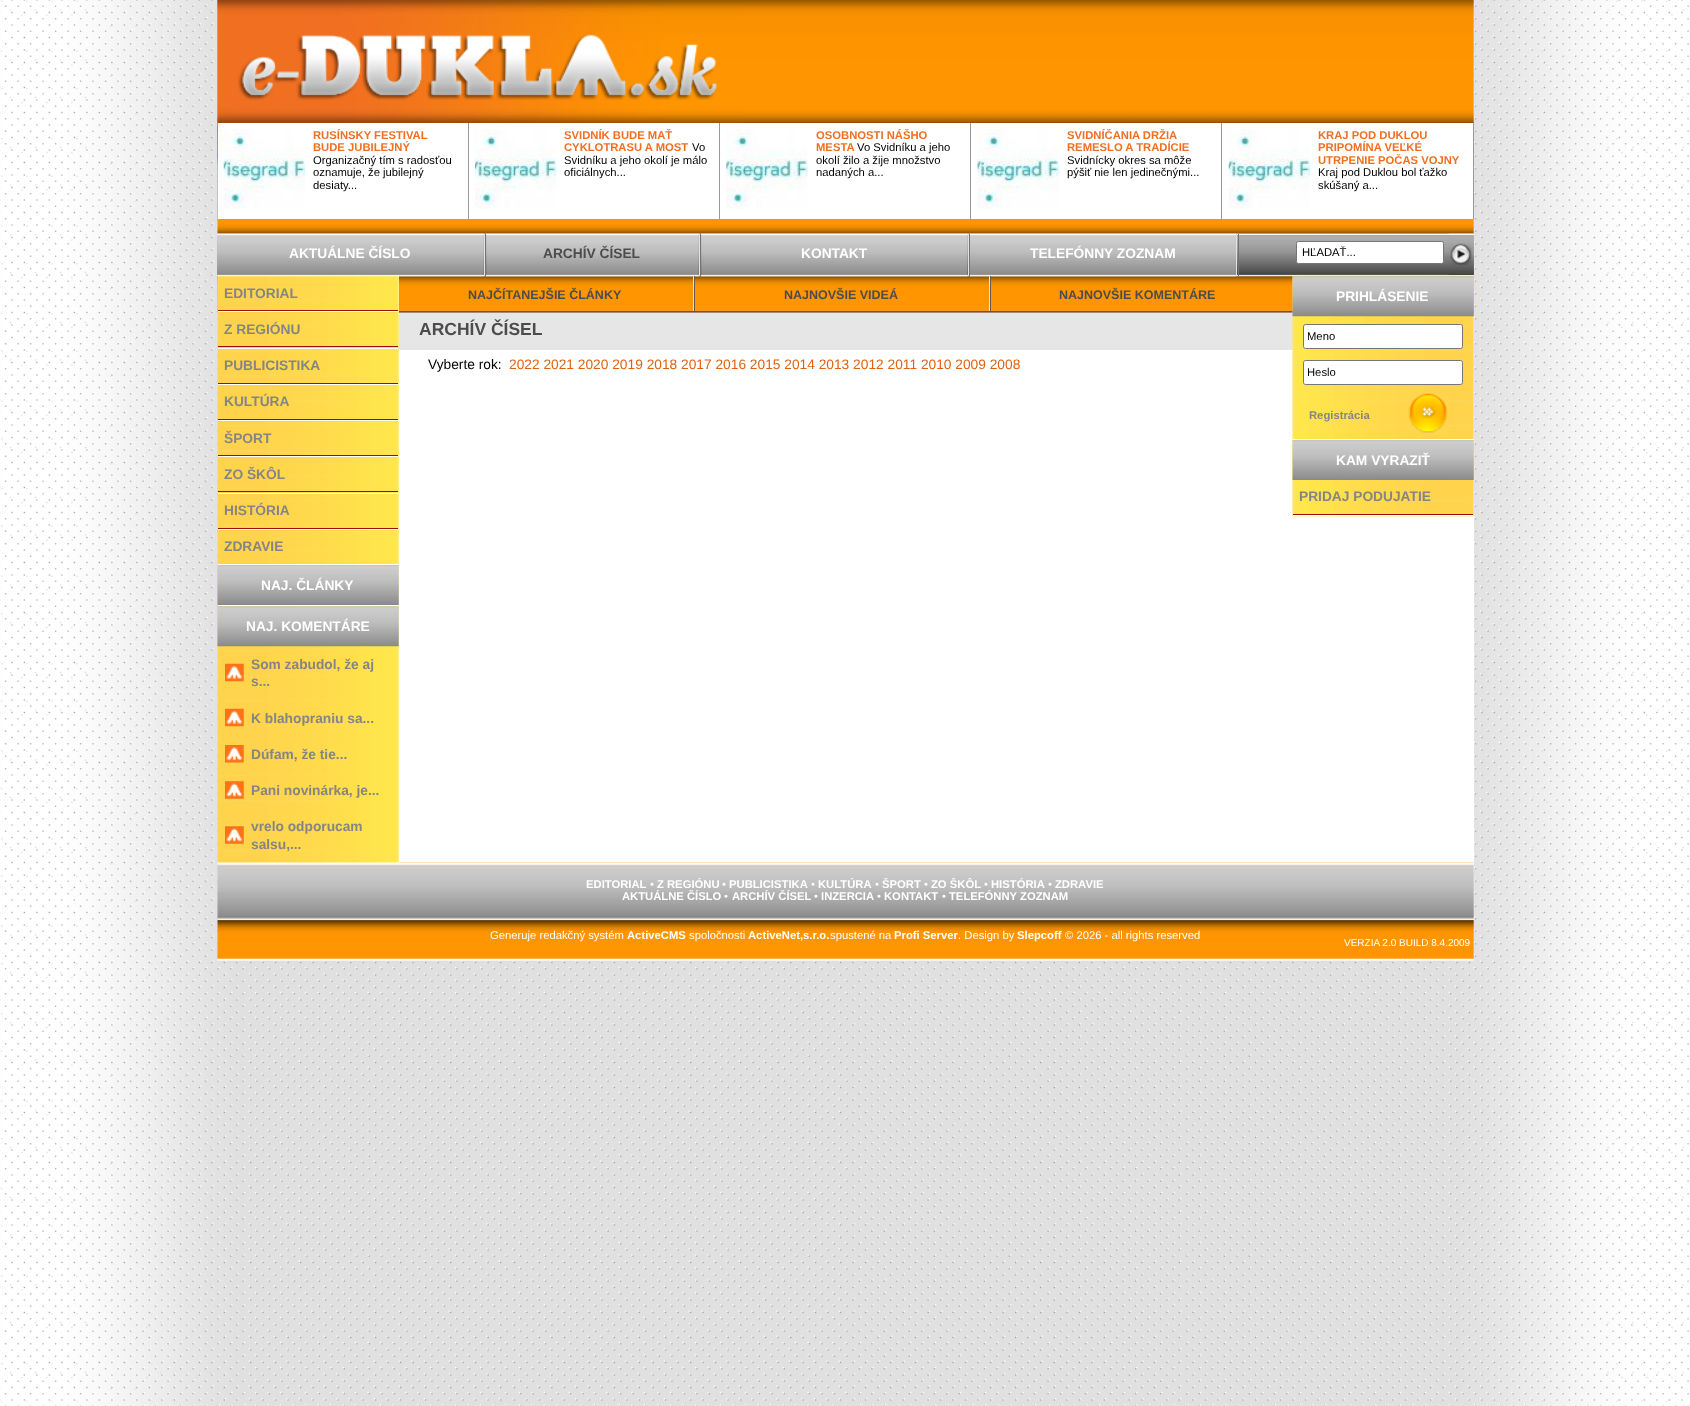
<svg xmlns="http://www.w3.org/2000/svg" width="1690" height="1406">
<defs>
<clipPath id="clip1"><rect x="1308" y="330" width="150" height="13"/></clipPath>
<clipPath id="clip2"><rect x="1308" y="366" width="150" height="13"/></clipPath>
</defs>
<rect width="100%" height="100%" fill="#fff"/>
<image x="0" y="0" width="1689" height="1406" href="media/1.png"/>
<rect x="218" width="1256" height="961" fill="#fff"/>
<image x="217" y="0" width="1257" height="234" href="media/2.png"/>
<image x="217" y="0" width="525" height="123" href="media/3.png"/>
<rect x="218" y="123" width="250" height="96" fill="#fff"/>
<rect x="468" y="123" width="1" height="96" fill="#999"/>
<image x="223" y="129" width="82" height="80" href="media/4.png"/>
<text x="313" y="139" style="font-family:Liberation Sans;font-size:11.25px;font-weight:bold;fill:#f06f21">RUSÍNSKY FESTIVAL</text>
<text x="313" y="151" style="font-family:Liberation Sans;font-size:11.25px;font-weight:bold;fill:#f06f21">BUDE JUBILEJNÝ</text>
<text x="313" y="164" style="font-family:Liberation Sans;font-size:11.25px;fill:#000">Organizačný tím s radosťou</text>
<text x="313" y="176" style="font-family:Liberation Sans;font-size:11.25px;fill:#000">oznamuje, že jubilejný</text>
<text x="313" y="189" style="font-family:Liberation Sans;font-size:11.25px;fill:#000">desiaty...</text>
<rect x="469" y="123" width="250" height="96" fill="#fff"/>
<rect x="719" y="123" width="1" height="96" fill="#999"/>
<image x="475" y="129" width="82" height="80" href="media/5.png"/>
<text x="564" y="139" style="font-family:Liberation Sans;font-size:11.25px;font-weight:bold;fill:#f06f21">SVIDNÍK BUDE MAŤ</text>
<text x="564" y="151" style="font-family:Liberation Sans;font-size:11.25px;font-weight:bold;fill:#f06f21">CYKLOTRASU A MOST</text>
<text x="692" y="151" style="font-family:Liberation Sans;font-size:11.25px;fill:#000">Vo</text>
<text x="564" y="164" style="font-family:Liberation Sans;font-size:11.25px;fill:#000">Svidníku a jeho okolí je málo</text>
<text x="564" y="176" style="font-family:Liberation Sans;font-size:11.25px;fill:#000">oficiálnych...</text>
<rect x="720" y="123" width="250" height="96" fill="#fff"/>
<rect x="970" y="123" width="1" height="96" fill="#999"/>
<image x="726" y="129" width="82" height="80" href="media/6.png"/>
<text x="816" y="139" style="font-family:Liberation Sans;font-size:11.25px;font-weight:bold;fill:#f06f21">OSOBNOSTI NÁŠHO</text>
<text x="816" y="151" style="font-family:Liberation Sans;font-size:11.25px;font-weight:bold;fill:#f06f21">MESTA</text>
<text x="857" y="151" style="font-family:Liberation Sans;font-size:11.25px;fill:#000">Vo Svidníku a jeho</text>
<text x="816" y="164" style="font-family:Liberation Sans;font-size:11.25px;fill:#000">okolí žilo a žije množstvo</text>
<text x="816" y="176" style="font-family:Liberation Sans;font-size:11.25px;fill:#000">nadaných a...</text>
<rect x="971" y="123" width="502" height="96" fill="#fff"/>
<rect x="1221" y="123" width="1" height="96" fill="#999"/>
<image x="977" y="129" width="82" height="80" href="media/7.png"/>
<text x="1067" y="139" style="font-family:Liberation Sans;font-size:11.25px;font-weight:bold;fill:#f06f21">SVIDNÍČANIA DRŽIA</text>
<text x="1067" y="151" style="font-family:Liberation Sans;font-size:11.25px;font-weight:bold;fill:#f06f21">REMESLO A TRADÍCIE</text>
<text x="1067" y="164" style="font-family:Liberation Sans;font-size:11.25px;fill:#000">Svidnícky okres sa môže</text>
<text x="1067" y="176" style="font-family:Liberation Sans;font-size:11.25px;fill:#000">pýšiť nie len jedinečnými...</text>
<rect x="1473" y="123" width="1" height="96" fill="#999"/>
<image x="1228" y="129" width="82" height="80" href="media/4.png"/>
<text x="1318" y="139" style="font-family:Liberation Sans;font-size:11.25px;font-weight:bold;fill:#f06f21">KRAJ POD DUKLOU</text>
<text x="1318" y="151" style="font-family:Liberation Sans;font-size:11.25px;font-weight:bold;fill:#f06f21">PRIPOMÍNA VEĽKÉ</text>
<text x="1318" y="164" style="font-family:Liberation Sans;font-size:11.25px;font-weight:bold;fill:#f06f21">UTRPENIE POČAS VOJNY</text>
<text x="1318" y="176" style="font-family:Liberation Sans;font-size:11.25px;fill:#000">Kraj pod Duklou bol ťažko</text>
<text x="1318" y="189" style="font-family:Liberation Sans;font-size:11.25px;fill:#000">skúšaný a...</text>
<image x="217" y="233" width="1257" height="43" href="media/12.png"/>
<image x="217" y="276" width="1257" height="38" href="media/22.png"/>
<image x="217" y="233" width="267" height="44" href="media/8.png"/>
<text x="289" y="258" style="font-family:Liberation Sans;font-size:13.75px;font-weight:bold;fill:#fff">AKTUÁLNE ČÍSLO</text>
<rect x="485" y="234" width="1" height="42" fill="#747474"/>
<rect x="484" y="234" width="1" height="42" fill="#e2e2e2"/>
<image x="486" y="233" width="213" height="44" href="media/9.png"/>
<text x="543" y="258" style="font-family:Liberation Sans;font-size:13.75px;font-weight:bold;fill:#4c4c4e">ARCHÍV ČÍSEL</text>
<rect x="700" y="234" width="1" height="42" fill="#747474"/>
<rect x="699" y="234" width="1" height="42" fill="#e2e2e2"/>
<image x="701" y="233" width="267" height="44" href="media/10.png"/>
<text x="801" y="258" style="font-family:Liberation Sans;font-size:13.75px;font-weight:bold;fill:#fff">KONTAKT</text>
<rect x="969" y="234" width="1" height="42" fill="#747474"/>
<rect x="968" y="234" width="1" height="42" fill="#e2e2e2"/>
<image x="970" y="233" width="267" height="44" href="media/11.png"/>
<text x="1030" y="258" style="font-family:Liberation Sans;font-size:13.75px;font-weight:bold;fill:#fff">TELEFÓNNY ZOZNAM</text>
<rect x="1238" y="234" width="1" height="42" fill="#747474"/>
<rect x="1236" y="234" width="1" height="42" fill="#e2e2e2"/>
<rect x="1296.5" y="241.5" width="147" height="22" rx="2" fill="#fff" stroke="#767676"/>
<text x="1302" y="256" style="font-family:Liberation Sans;font-size:11.25px;fill:#000">HĽADAŤ...</text>
<image x="1448" y="233" width="26" height="42" href="media/13.png"/>
<image x="217" y="862" width="1257" height="100" href="media/27.png"/>
<rect x="218" y="276" width="181" height="587" fill="#fff"/>
<image x="217" y="276" width="182" height="587" href="media/14.png"/>
<text x="224" y="298" style="font-family:Liberation Sans;font-size:13.75px;font-weight:bold;fill:#858585">EDITORIAL</text>
<rect x="218" y="310" width="180" height="1" fill="#a00d05"/>
<rect x="218" y="311" width="180" height="1" fill="#fff"/>
<text x="224" y="334" style="font-family:Liberation Sans;font-size:13.75px;font-weight:bold;fill:#858585">Z REGIÓNU</text>
<rect x="218" y="346" width="180" height="1" fill="#a00d05"/>
<rect x="218" y="348" width="180" height="1" fill="#fff"/>
<text x="224" y="370" style="font-family:Liberation Sans;font-size:13.75px;font-weight:bold;fill:#858585">PUBLICISTIKA</text>
<rect x="218" y="383" width="180" height="1" fill="#a00d05"/>
<rect x="218" y="384" width="180" height="1" fill="#fff"/>
<text x="224" y="406" style="font-family:Liberation Sans;font-size:13.75px;font-weight:bold;fill:#858585">KULTÚRA</text>
<rect x="218" y="419" width="180" height="1" fill="#a00d05"/>
<rect x="218" y="420" width="180" height="1" fill="#fff"/>
<text x="224" y="443" style="font-family:Liberation Sans;font-size:13.75px;font-weight:bold;fill:#858585">ŠPORT</text>
<rect x="218" y="455" width="180" height="1" fill="#a00d05"/>
<rect x="218" y="456" width="180" height="1" fill="#fff"/>
<text x="224" y="479" style="font-family:Liberation Sans;font-size:13.75px;font-weight:bold;fill:#858585">ZO ŠKÔL</text>
<rect x="218" y="491" width="180" height="1" fill="#a00d05"/>
<rect x="218" y="493" width="180" height="1" fill="#fff"/>
<text x="224" y="515" style="font-family:Liberation Sans;font-size:13.75px;font-weight:bold;fill:#858585">HISTÓRIA</text>
<rect x="218" y="528" width="180" height="1" fill="#a00d05"/>
<rect x="218" y="529" width="180" height="1" fill="#fff"/>
<text x="224" y="551" style="font-family:Liberation Sans;font-size:13.75px;font-weight:bold;fill:#858585">ZDRAVIE</text>
<image x="217" y="565" width="182" height="40" href="media/15.png"/>
<rect x="218" y="564" width="181" height="1" fill="#fff"/>
<text x="261" y="590" style="font-family:Liberation Sans;font-size:13.75px;font-weight:bold;fill:#fff">NAJ. ČLÁNKY</text>
<image x="217" y="606" width="182" height="41" href="media/16.png"/>
<rect x="218" y="605" width="181" height="1" fill="#fff"/>
<text x="246" y="631" style="font-family:Liberation Sans;font-size:13.75px;font-weight:bold;fill:#fff">NAJ. KOMENTÁRE</text>
<image x="225" y="663" width="19" height="19" href="media/17.png"/>
<text x="251" y="669" style="font-family:Liberation Sans;font-size:13.75px;font-weight:bold;fill:#858585">Som zabudol, že aj</text>
<text x="251" y="686" style="font-family:Liberation Sans;font-size:13.75px;font-weight:bold;fill:#858585">s...</text>
<image x="225" y="708" width="19" height="19" href="media/18.png"/>
<text x="251" y="723" style="font-family:Liberation Sans;font-size:13.75px;font-weight:bold;fill:#858585">K blahopraniu sa...</text>
<image x="225" y="745" width="19" height="18" href="media/19.png"/>
<text x="251" y="759" style="font-family:Liberation Sans;font-size:13.75px;font-weight:bold;fill:#858585">Dúfam, že tie...</text>
<image x="225" y="781" width="19" height="18" href="media/20.png"/>
<text x="251" y="795" style="font-family:Liberation Sans;font-size:13.75px;font-weight:bold;fill:#858585">Pani novinárka, je...</text>
<image x="225" y="826" width="19" height="18" href="media/21.png"/>
<text x="251" y="831" style="font-family:Liberation Sans;font-size:13.75px;font-weight:bold;fill:#858585">vrelo odporucam</text>
<text x="251" y="849" style="font-family:Liberation Sans;font-size:13.75px;font-weight:bold;fill:#858585">salsu,...</text>
<text x="468" y="299" style="font-family:Liberation Sans;font-size:12.5px;font-weight:bold;fill:#4c4c4e">NAJČÍTANEJŠIE ČLÁNKY</text>
<rect x="694" y="276" width="1" height="35" fill="#625a50"/>
<rect x="693" y="276" width="1" height="35" fill="#ffe4be"/>
<text x="784" y="299" style="font-family:Liberation Sans;font-size:12.5px;font-weight:bold;fill:#4c4c4e">NAJNOVŠIE VIDEÁ</text>
<rect x="990" y="276" width="1" height="35" fill="#625a50"/>
<rect x="989" y="276" width="1" height="35" fill="#ffe4be"/>
<text x="1059" y="299" style="font-family:Liberation Sans;font-size:12.5px;font-weight:bold;fill:#4c4c4e">NAJNOVŠIE KOMENTÁRE</text>
<rect x="399" y="313" width="894" height="37" fill="#e6e6e6"/>
<image x="1292" y="276" width="182" height="241" href="media/23.png"/>
<image x="1292" y="276" width="182" height="41" href="media/24.png"/>
<text x="1336" y="301" style="font-family:Liberation Sans;font-size:13.75px;font-weight:bold;fill:#fff">PRIHLÁSENIE</text>
<rect x="1303.5" y="324.5" width="159" height="24" rx="2" fill="#fff" stroke="#767676"/>
<g clip-path="url(#clip1)">
<text x="1307" y="340" style="font-family:Liberation Sans;font-size:11.25px;fill:#000">Meno</text>
</g>
<rect x="1303.5" y="360.5" width="159" height="24" rx="2" fill="#fff" stroke="#767676"/>
<g clip-path="url(#clip2)">
<text x="1307" y="376" style="font-family:Liberation Sans;font-size:11.25px;fill:#000">Heslo</text>
</g>
<text x="1309" y="419" style="font-family:Liberation Sans;font-size:11.25px;font-weight:bold;fill:#858585">Registrácia</text>
<rect x="1408" y="394" width="41" height="41" fill="#ffd64c"/>
<image x="1408" y="393" width="40" height="40" href="media/25.png"/>
<image x="1292" y="440" width="182" height="40" href="media/26.png"/>
<rect x="1293" y="439" width="181" height="1" fill="#fff"/>
<text x="1336" y="465" style="font-family:Liberation Sans;font-size:13.75px;font-weight:bold;fill:#fff">KAM VYRAZIŤ</text>
<text x="1299" y="501" style="font-family:Liberation Sans;font-size:13.75px;font-weight:bold;fill:#858585">PRIDAJ PODUJATIE</text>
<rect x="1293" y="514" width="180" height="1" fill="#a00d05"/>
<rect x="1293" y="515" width="180" height="1" fill="#fff"/>
<text x="419" y="335" style="font-family:Liberation Sans;font-size:17.5px;font-weight:bold;fill:#4c4c4e">ARCHÍV ČÍSEL</text>
<text x="428" y="369" style="font-family:Liberation Sans;font-size:13.75px;fill:#000">Vyberte rok:</text>
<text x="509" y="369" style="font-family:Liberation Sans;font-size:13.75px;fill:#df610d">2022 2021 2020 2019 2018 2017 2016 2015 2014 2013 2012 2011 2010 2009 2008</text>
<text x="586" y="888" style="font-family:Liberation Sans;font-size:11.25px;font-weight:bold;fill:#fff">EDITORIAL</text>
<text x="650" y="888" style="font-family:Liberation Sans;font-size:11.25px;fill:#fff">•</text>
<text x="657" y="888" style="font-family:Liberation Sans;font-size:11.25px;font-weight:bold;fill:#fff">Z REGIÓNU</text>
<text x="722" y="888" style="font-family:Liberation Sans;font-size:11.25px;fill:#fff">•</text>
<text x="729" y="888" style="font-family:Liberation Sans;font-size:11.25px;font-weight:bold;fill:#fff">PUBLICISTIKA</text>
<text x="811" y="888" style="font-family:Liberation Sans;font-size:11.25px;fill:#fff">•</text>
<text x="818" y="888" style="font-family:Liberation Sans;font-size:11.25px;font-weight:bold;fill:#fff">KULTÚRA</text>
<text x="875" y="888" style="font-family:Liberation Sans;font-size:11.25px;fill:#fff">•</text>
<text x="882" y="888" style="font-family:Liberation Sans;font-size:11.25px;font-weight:bold;fill:#fff">ŠPORT</text>
<text x="924" y="888" style="font-family:Liberation Sans;font-size:11.25px;fill:#fff">•</text>
<text x="931" y="888" style="font-family:Liberation Sans;font-size:11.25px;font-weight:bold;fill:#fff">ZO ŠKÔL</text>
<text x="984" y="888" style="font-family:Liberation Sans;font-size:11.25px;fill:#fff">•</text>
<text x="991" y="888" style="font-family:Liberation Sans;font-size:11.25px;font-weight:bold;fill:#fff">HISTÓRIA</text>
<text x="1048" y="888" style="font-family:Liberation Sans;font-size:11.25px;fill:#fff">•</text>
<text x="1055" y="888" style="font-family:Liberation Sans;font-size:11.25px;font-weight:bold;fill:#fff">ZDRAVIE</text>
<text x="622" y="900" style="font-family:Liberation Sans;font-size:11.25px;font-weight:bold;fill:#fff">AKTUÁLNE ČÍSLO</text>
<text x="724" y="900" style="font-family:Liberation Sans;font-size:11.25px;fill:#fff">•</text>
<text x="732" y="900" style="font-family:Liberation Sans;font-size:11.25px;font-weight:bold;fill:#fff">ARCHÍV ČÍSEL</text>
<text x="814" y="900" style="font-family:Liberation Sans;font-size:11.25px;fill:#fff">•</text>
<text x="821" y="900" style="font-family:Liberation Sans;font-size:11.25px;font-weight:bold;fill:#fff">INZERCIA</text>
<text x="877" y="900" style="font-family:Liberation Sans;font-size:11.25px;fill:#fff">•</text>
<text x="884" y="900" style="font-family:Liberation Sans;font-size:11.25px;font-weight:bold;fill:#fff">KONTAKT</text>
<text x="942" y="900" style="font-family:Liberation Sans;font-size:11.25px;fill:#fff">•</text>
<text x="949" y="900" style="font-family:Liberation Sans;font-size:11.25px;font-weight:bold;fill:#fff">TELEFÓNNY ZOZNAM</text>
<text x="490" y="939" style="font-family:Liberation Sans;font-size:11.25px;fill:#fff">Generuje redakčný systém</text>
<text x="627" y="939" style="font-family:Liberation Sans;font-size:11.25px;font-weight:bold;fill:#fff">ActiveCMS</text>
<text x="689" y="939" style="font-family:Liberation Sans;font-size:11.25px;fill:#fff">spoločnosti</text>
<text x="748" y="939" style="font-family:Liberation Sans;font-size:11.25px;font-weight:bold;fill:#fff">ActiveNet,s.r.o.</text>
<text x="830" y="939" style="font-family:Liberation Sans;font-size:11.25px;fill:#fff">spustené na</text>
<text x="894" y="939" style="font-family:Liberation Sans;font-size:11.25px;font-weight:bold;fill:#fff">Profi Server</text>
<text x="958" y="939" style="font-family:Liberation Sans;font-size:11.25px;fill:#fff">. Design by</text>
<text x="1017" y="939" style="font-family:Liberation Sans;font-size:11.25px;font-weight:bold;fill:#fff">Slepcoff</text>
<text x="1065" y="939" style="font-family:Liberation Sans;font-size:11.25px;fill:#fff">© 2026 - all rights reserved</text>
<text x="1344" y="946" style="font-family:Liberation Sans;font-size:10px;fill:#fff">VERZIA 2.0 BUILD 8.4.2009</text>
</svg>
